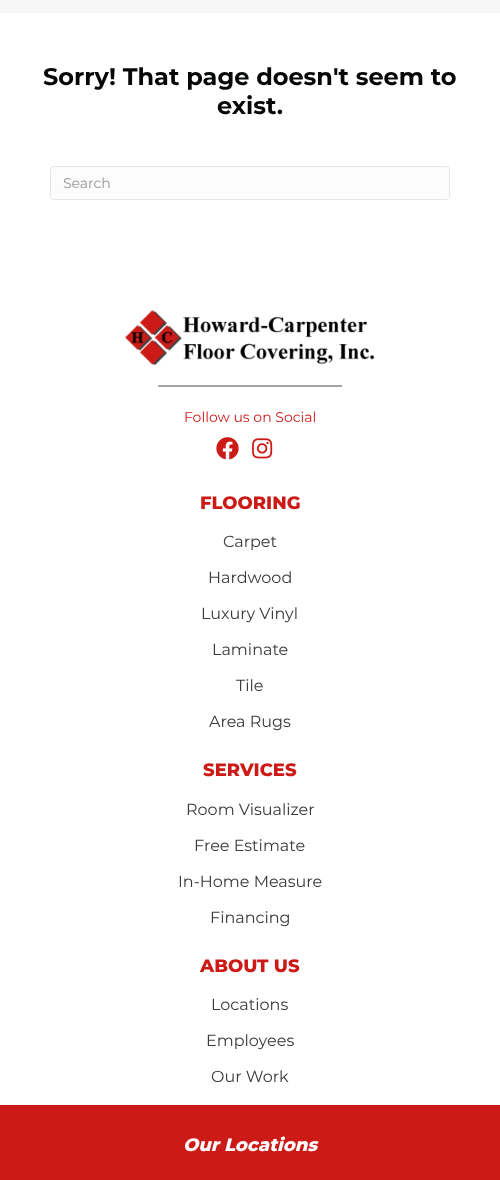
<svg xmlns="http://www.w3.org/2000/svg" width="500" height="1180">
<rect width="100%" height="100%" fill="#fff"/>
<rect width="500" height="13" fill="#f7f7f7"/>
<text x="43" y="85" style="font-family:Montserrat;font-size:24px;font-weight:bold;fill:#050708">Sorry! That page doesn't seem to</text>
<text x="217" y="114" style="font-family:Montserrat;font-size:24px;font-weight:bold;fill:#050708">exist.</text>
<rect x="50.5" y="166.5" width="399" height="33" rx="3.5" fill="#fcfcfc" stroke="#e6e6e6"/>
<text x="63" y="188" style="font-family:Montserrat;font-size:14px;fill:#979797">Search</text>
<image x="125" y="310" width="250" height="55" href="media/1.png"/>
<rect x="158" y="385" width="184" height="2" fill="#a4a5a8"/>
<text x="184" y="422" style="font-family:Montserrat;font-size:14px;fill:#cc1b17">Follow us on Social</text>
<image x="216" y="437" width="23" height="23" href="media/2.png"/>
<image x="252" y="438" width="21" height="21" href="media/3.png"/>
<text x="200" y="509" style="font-family:Montserrat;font-size:18px;font-weight:800;fill:#cc1b17">FLOORING</text>
<text x="223" y="547" style="font-family:Montserrat;font-size:16px;fill:#3a3a39">Carpet</text>
<text x="208" y="583" style="font-family:Montserrat;font-size:16px;fill:#3a3a39">Hardwood</text>
<text x="201" y="619" style="font-family:Montserrat;font-size:16px;fill:#3a3a39">Luxury Vinyl</text>
<text x="212" y="655" style="font-family:Montserrat;font-size:16px;fill:#3a3a39">Laminate</text>
<text x="236" y="691" style="font-family:Montserrat;font-size:16px;fill:#3a3a39">Tile</text>
<text x="209" y="727" style="font-family:Montserrat;font-size:16px;fill:#3a3a39">Area Rugs</text>
<text x="203" y="776" style="font-family:Montserrat;font-size:18px;font-weight:800;fill:#cc1b17">SERVICES</text>
<text x="186" y="815" style="font-family:Montserrat;font-size:16px;fill:#3a3a39">Room Visualizer</text>
<text x="194" y="851" style="font-family:Montserrat;font-size:16px;fill:#3a3a39">Free Estimate</text>
<text x="178" y="887" style="font-family:Montserrat;font-size:16px;fill:#3a3a39">In-Home Measure</text>
<text x="210" y="923" style="font-family:Montserrat;font-size:16px;fill:#3a3a39">Financing</text>
<text x="200" y="972" style="font-family:Montserrat;font-size:18px;font-weight:800;fill:#cc1b17">ABOUT US</text>
<text x="211" y="1010" style="font-family:Montserrat;font-size:16px;fill:#3a3a39">Locations</text>
<text x="206" y="1046" style="font-family:Montserrat;font-size:16px;fill:#3a3a39">Employees</text>
<text x="211" y="1082" style="font-family:Montserrat;font-size:16px;fill:#3a3a39">Our Work</text>
<rect y="1105" width="500" height="75" fill="#cc1b17"/>
<text x="183" y="1151" style="font-family:Montserrat;font-size:18px;font-weight:800;font-style:italic;fill:#fff">Our Locations</text>
</svg>
